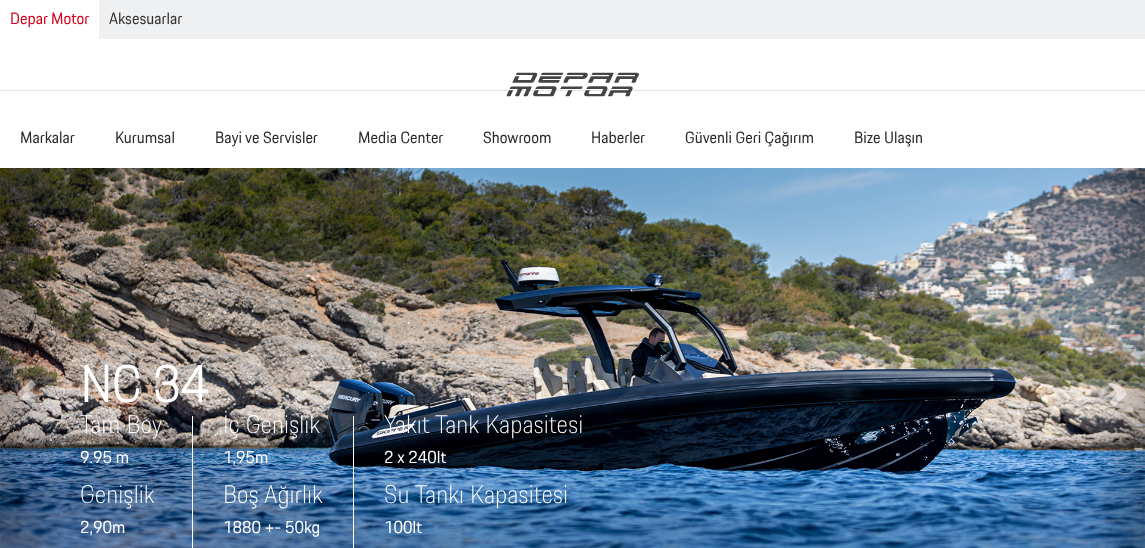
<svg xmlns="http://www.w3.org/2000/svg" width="1145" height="548">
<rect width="100%" height="100%" fill="#fff"/>
<rect x="99" width="1046" height="39" fill="#eff0f1"/>
<text x="10" y="24" style="font-family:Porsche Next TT;font-size:16px;fill:#d5001c">Depar Motor</text>
<text x="109" y="24" style="font-family:Porsche Next TT;font-size:16px;fill:#333">Aksesuarlar</text>
<rect y="90" width="1145" height="1" fill="#e3e4e4"/>
<image x="506" y="72" width="133" height="25" href="media/1.png"/>
<text x="20" y="143" style="font-family:Porsche Next TT;font-size:16px;fill:#292929">Markalar</text>
<text x="115" y="143" style="font-family:Porsche Next TT;font-size:16px;fill:#292929">Kurumsal</text>
<text x="215" y="143" style="font-family:Porsche Next TT;font-size:16px;fill:#292929">Bayi ve Servisler</text>
<text x="358" y="143" style="font-family:Porsche Next TT;font-size:16px;fill:#292929">Media Center</text>
<text x="483" y="143" style="font-family:Porsche Next TT;font-size:16px;fill:#292929">Showroom</text>
<text x="591" y="143" style="font-family:Porsche Next TT;font-size:16px;fill:#292929">Haberler</text>
<text x="685" y="143" style="font-family:Porsche Next TT;font-size:16px;fill:#292929">Güvenli Geri Çağırım</text>
<text x="854" y="143" style="font-family:Porsche Next TT;font-size:16px;fill:#292929">Bize Ulaşın</text>
<image x="0" y="168" width="1145" height="380" href="media/2.png"/>
<path d="M36 384.5l-8.5 9l8.5 8.5l-5 5l-13.5-13.5l13.5-14z" fill="#ffffff80"/>
<text x="80" y="402" style="font-family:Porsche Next;font-size:50px;font-weight:bold;fill:#fff">NC 34</text>
<rect x="192" y="416" width="1" height="132" fill="#fff"/>
<text x="80" y="433" style="font-family:Porsche Next;font-size:25px;font-weight:100;fill:#fff">Tam Boy</text>
<text x="80" y="463" style="font-family:Porsche Next TT;font-size:17px;fill:#fff">9.95 m</text>
<text x="80" y="503" style="font-family:Porsche Next;font-size:25px;font-weight:100;fill:#fff">Genişlik</text>
<text x="80" y="533" style="font-family:Porsche Next TT;font-size:17px;fill:#fff">2,90m</text>
<rect x="353" y="416" width="1" height="132" fill="#fff"/>
<text x="223" y="433" style="font-family:Porsche Next;font-size:25px;font-weight:100;fill:#fff">İç Genişlik</text>
<text x="223" y="463" style="font-family:Porsche Next TT;font-size:17px;fill:#fff">1,95m</text>
<text x="223" y="503" style="font-family:Porsche Next;font-size:25px;font-weight:100;fill:#fff">Boş Ağırlık</text>
<text x="223" y="533" style="font-family:Porsche Next TT;font-size:17px;fill:#fff">1880 +- 50kg</text>
<text x="384" y="433" style="font-family:Porsche Next;font-size:25px;font-weight:100;fill:#fff">Yakıt Tank Kapasitesi</text>
<text x="384" y="463" style="font-family:Porsche Next TT;font-size:17px;fill:#fff">2 x 240lt</text>
<text x="384" y="503" style="font-family:Porsche Next;font-size:25px;font-weight:100;fill:#fff">Su Tankı Kapasitesi</text>
<text x="384" y="533" style="font-family:Porsche Next TT;font-size:17px;fill:#fff">100lt</text>
<path d="M1127.5 393.5l-13.5 13.5l-5-5l8.5-8.5l-8.5-9l5-5z" fill="#ffffff80"/>
</svg>
